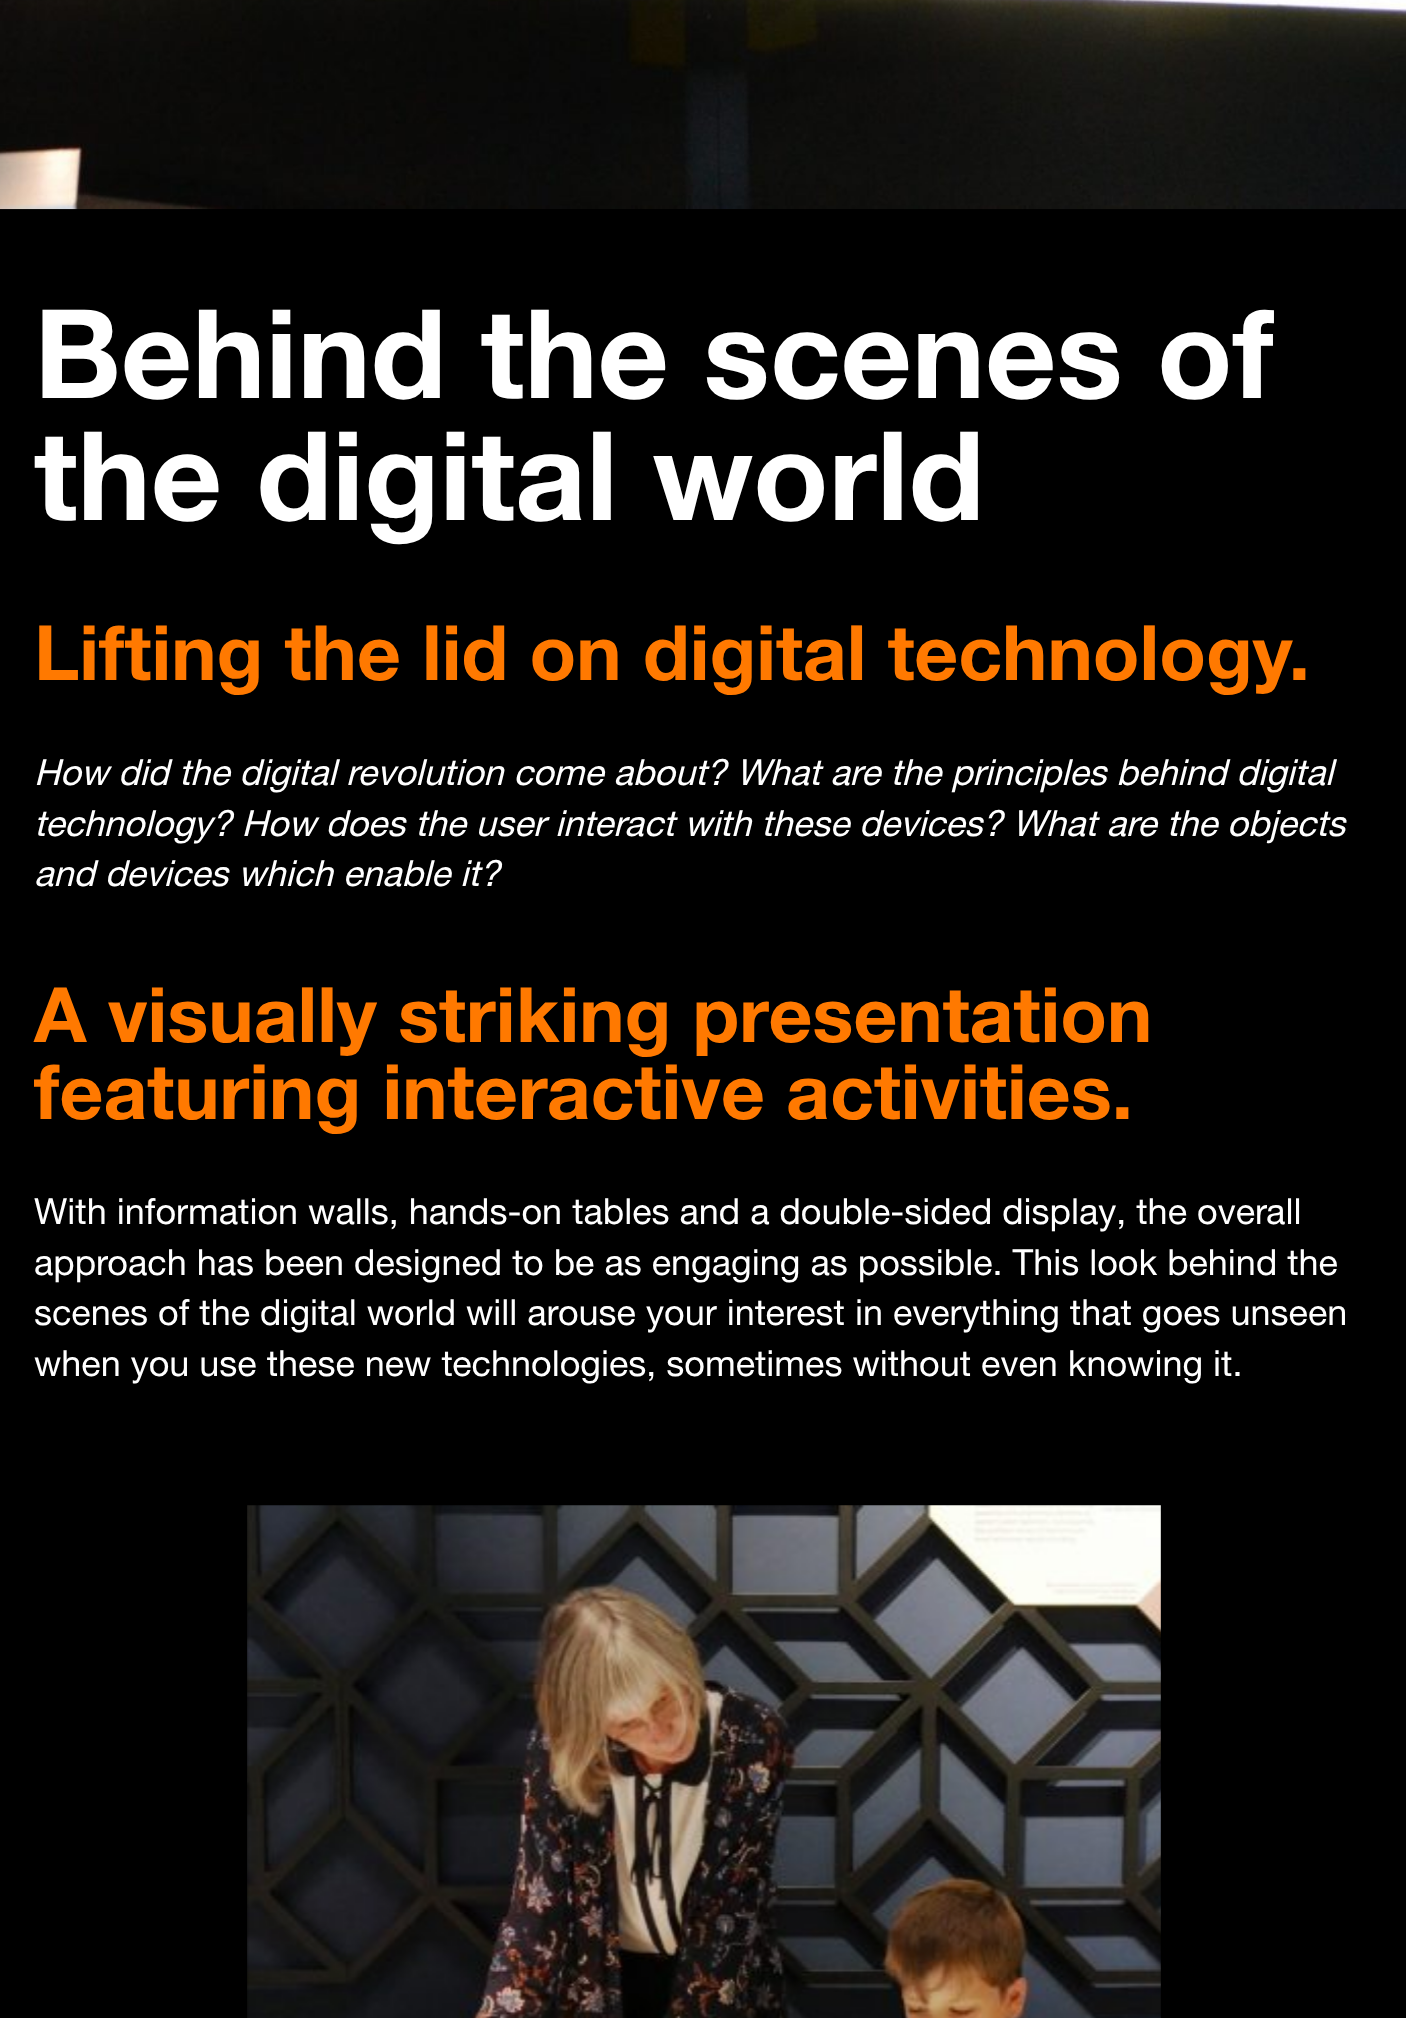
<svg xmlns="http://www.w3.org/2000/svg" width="1406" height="2018">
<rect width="100%" height="100%" fill="#000"/>
<image x="0" y="0" width="1406" height="210" href="media/1.png"/>
<text x="34" y="398" style="font-family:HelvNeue;font-size:123.75px;font-weight:bold;fill:#fff">Behind the scenes of</text>
<text x="34" y="520" style="font-family:HelvNeue;font-size:123.75px;font-weight:bold;fill:#fff">the digital world</text>
<text x="34" y="680" style="font-family:HelvNeue;font-size:76.5px;font-weight:bold;fill:#ff7900">Lifting the lid on digital technology.</text>
<text x="34" y="785" style="font-family:HelvNeue;font-size:36px;font-style:italic;fill:#fff">How did the digital revolution come about? What are the principles behind digital</text>
<text x="34" y="836" style="font-family:HelvNeue;font-size:36px;font-style:italic;fill:#fff">technology? How does the user interact with these devices? What are the objects</text>
<text x="34" y="886" style="font-family:HelvNeue;font-size:36px;font-style:italic;fill:#fff">and devices which enable it?</text>
<text x="34" y="1042" style="font-family:HelvNeue;font-size:76.5px;font-weight:bold;fill:#ff7900">A visually striking presentation</text>
<text x="34" y="1119" style="font-family:HelvNeue;font-size:76.5px;font-weight:bold;fill:#ff7900">featuring interactive activities.</text>
<text x="34" y="1224" style="font-family:HelvNeue;font-size:36px;fill:#fff">With information walls, hands-on tables and a double-sided display, the overall</text>
<text x="34" y="1275" style="font-family:HelvNeue;font-size:36px;fill:#fff">approach has been designed to be as engaging as possible. This look behind the</text>
<text x="34" y="1325" style="font-family:HelvNeue;font-size:36px;fill:#fff">scenes of the digital world will arouse your interest in everything that goes unseen</text>
<text x="34" y="1376" style="font-family:HelvNeue;font-size:36px;fill:#fff">when you use these new technologies, sometimes without even knowing it.</text>
<image x="247" y="1505" width="914" height="513" href="media/2.png"/>
</svg>
